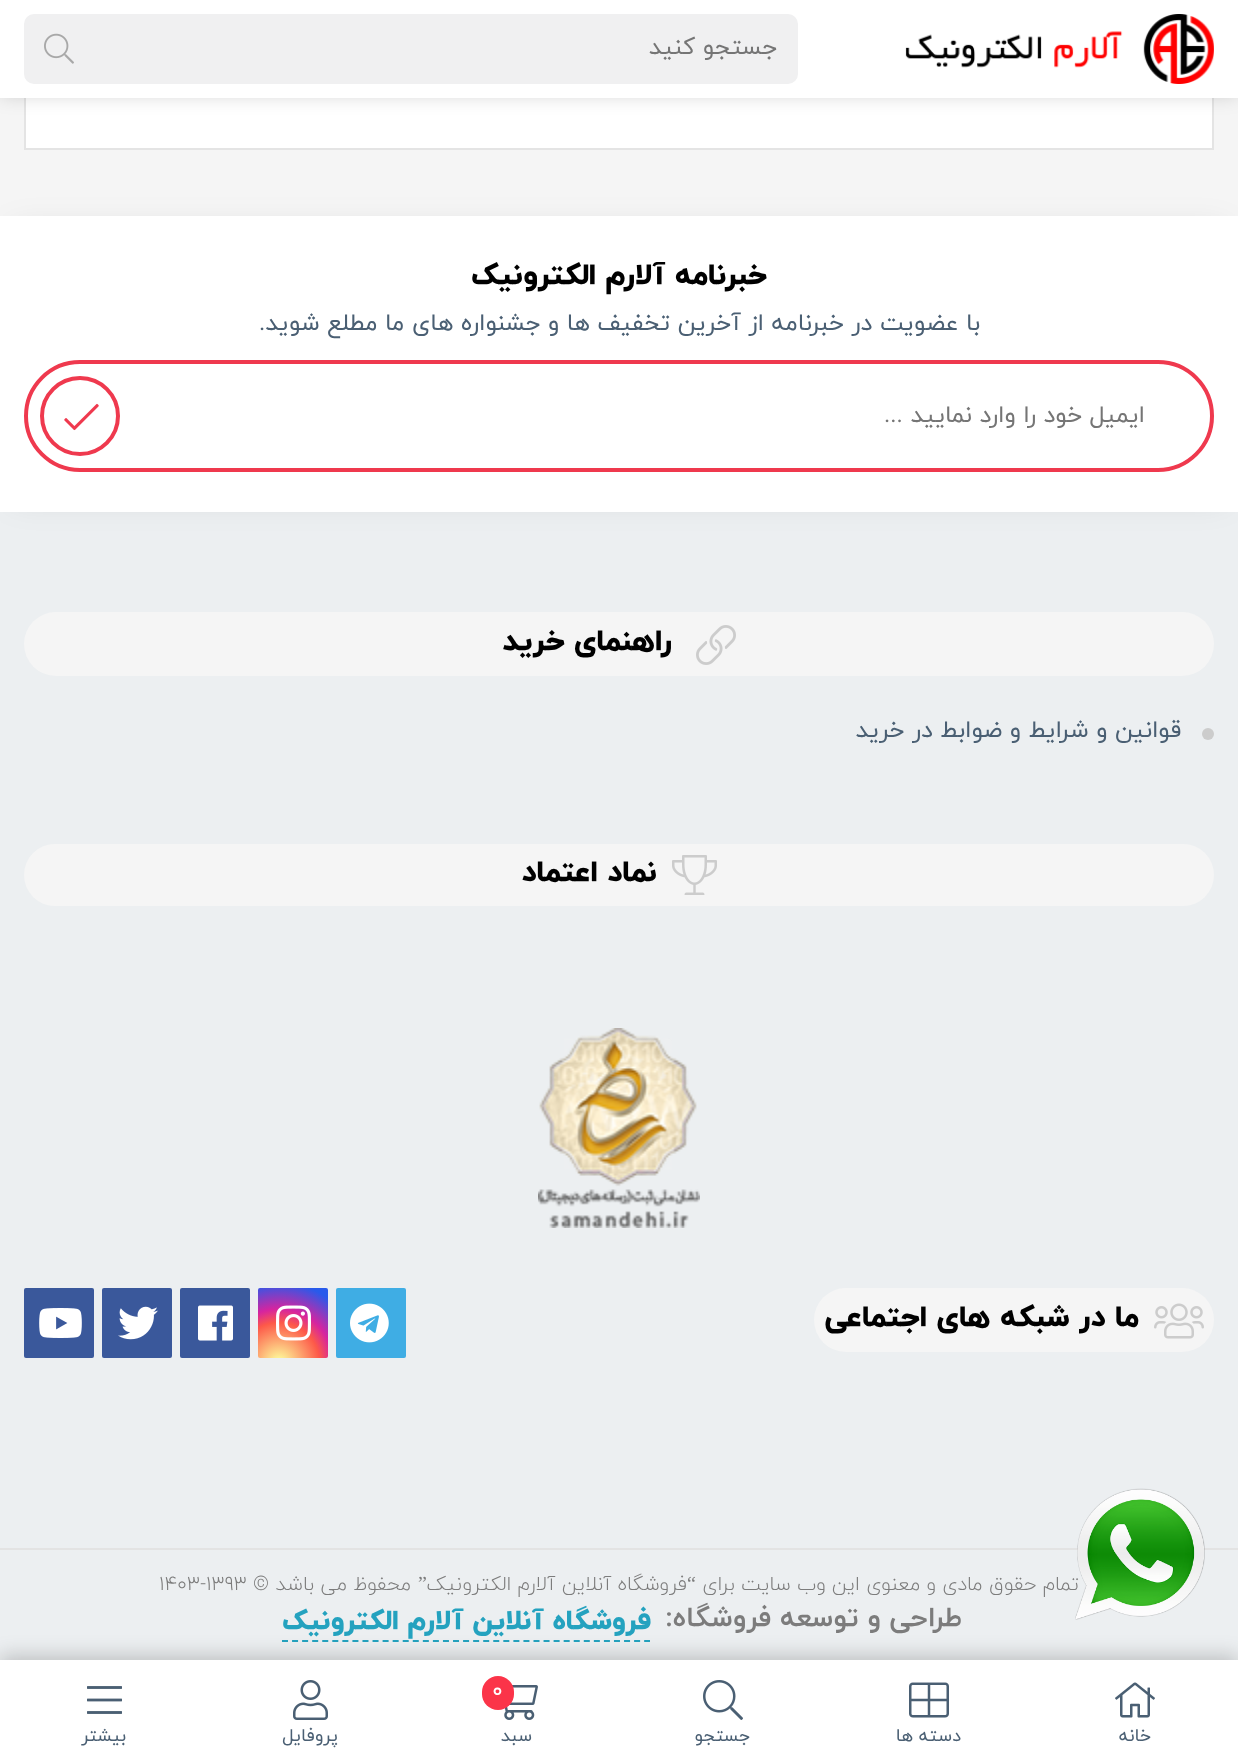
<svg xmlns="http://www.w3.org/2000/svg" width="1238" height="1759">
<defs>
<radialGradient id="g1" gradientUnits="userSpaceOnUse" cx="279" cy="1363" r="90"><stop offset="0" stop-color="#fdf497"/><stop offset="0.05" stop-color="#fdf497"/><stop offset="0.45" stop-color="#fd5949"/><stop offset="0.6" stop-color="#d6249f"/><stop offset="0.9" stop-color="#285aeb"/></radialGradient>
</defs>
<rect width="100%" height="100%" fill="#f5f5f5"/>
<rect x="26" y="98" width="1186" height="50" fill="#fff"/>
<rect x="25" y="-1" width="1188" height="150" fill="none" stroke="#e4e4e4" stroke-width="2"/>
<rect y="-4" width="1238" height="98" fill="#00000033" filter="blur(10px)"/>
<rect width="1238" height="98" fill="#fff"/>
<image x="905" y="14" width="309" height="70" href="media/1.png"/>
<rect x="24" y="14" width="774" height="70" rx="10" fill="#f0f0f1"/>
<text x="777" y="54" style="font-family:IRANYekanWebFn;font-size:24px;direction:rtl;fill:#757575">جستجو كنيد</text>
<image x="44" y="33" width="30" height="31" href="media/2.png"/>
<rect y="512" width="1238" height="1148" fill="#eceff1"/>
<rect x="12" y="228" width="1214" height="272" fill="#0000001a" filter="blur(16px)"/>
<rect y="216" width="1238" height="296" fill="#fff"/>
<text x="767" y="284" style="font-family:IRANYekanWebFn;font-size:30px;font-weight:800;direction:rtl;fill:#000">خبرنامه آلارم الکترونیک</text>
<text x="980" y="330" style="font-family:IRANYekanWebFn;font-size:24px;direction:rtl;fill:#4a5f73">با عضویت در خبرنامه از آخرین تخفیف ها و جشنواره های ما مطلع شوید.</text>
<rect x="26" y="362" width="1186" height="108" rx="54" fill="none" stroke="#ef394e" stroke-width="4"/>
<text x="1145" y="422" style="font-family:IRANYekanWebFn;font-size:24px;direction:rtl;fill:#757575">ایمیل خود را وارد نمایید ...</text>
<circle cx="80" cy="416" r="38" fill="none" stroke="#ef394e" stroke-width="4"/>
<image x="64" y="403" width="35" height="28" href="media/3.png"/>
<rect x="24" y="612" width="1190" height="64" rx="32" fill="#f5f5f5"/>
<image x="696" y="625" width="40" height="40" href="media/4.png"/>
<text x="672" y="650" style="font-family:IRANYekanWebFn;font-size:30px;font-weight:800;direction:rtl;fill:#000">راهنمای خرید</text>
<circle cx="1208" cy="734" r="6" fill="#ccc"/>
<text x="1181" y="737" style="font-family:IRANYekanWebFn;font-size:24px;direction:rtl;fill:#4a5f73">قوانین و شرایط و ضوابط در خرید</text>
<rect x="24" y="844" width="1190" height="62" rx="31" fill="#f5f5f5"/>
<image x="672" y="855" width="45" height="40" href="media/5.png"/>
<text x="657" y="881" style="font-family:IRANYekanWebFn;font-size:30px;font-weight:800;direction:rtl;fill:#000">نماد اعتماد</text>
<image x="538" y="1028" width="162" height="200" href="media/6.png"/>
<rect x="814" y="1288" width="400" height="64" rx="32" fill="#f5f5f5"/>
<image x="1154" y="1303" width="50" height="36" href="media/7.png"/>
<text x="1139" y="1326" style="font-family:IRANYekanWebFn;font-size:30px;font-weight:800;direction:rtl;fill:#000">ما در شبكه های اجتماعی</text>
<rect x="336" y="1288" width="70" height="70" rx="2" fill="#3fade4"/>
<image x="350" y="1303" width="39" height="40" href="media/8.png"/>
<rect x="258" y="1288" width="70" height="70" rx="2" fill="url(#g1)"/>
<image x="276" y="1305" width="35" height="36" href="media/9.png"/>
<rect x="180" y="1288" width="70" height="70" rx="2" fill="#3a589b"/>
<image x="198" y="1305" width="35" height="36" href="media/10.png"/>
<rect x="102" y="1288" width="70" height="70" rx="2" fill="#3a589b"/>
<image x="118" y="1306" width="40" height="34" href="media/11.png"/>
<rect x="24" y="1288" width="70" height="70" rx="2" fill="#3a589b"/>
<image x="39" y="1308" width="43" height="30" href="media/12.png"/>
<rect y="1548" width="1238" height="2" fill="#e3e3e3"/>
<text x="1079" y="1590" style="font-family:IRANYekanWebFn;font-size:20px;font-weight:300;direction:rtl;fill:#7c7c7c">تمام حقوق مادی و معنوی این وب سایت برای</text>
<text x="696" y="1590" style="font-family:Liberation Serif;font-size:20px;direction:rtl;fill:#7c7c7c">“</text>
<text x="687" y="1590" style="font-family:IRANYekanWebFn;font-size:20px;font-weight:300;direction:rtl;fill:#7c7c7c">فروشگاه آنلاین آلارم الکترونیک</text>
<text x="427" y="1590" style="font-family:Liberation Serif;font-size:20px;direction:rtl;fill:#7c7c7c">”</text>
<text x="411" y="1590" style="font-family:IRANYekanWebFn;font-size:20px;font-weight:300;direction:rtl;fill:#7c7c7c">محفوظ می باشد ©</text>
<text x="159" y="1590" style="font-family:IRANYekanWebFn;font-size:20px;font-weight:300;fill:#7c7c7c">1403-1393</text>
<text x="962" y="1626" style="font-family:IRANYekanWebFn;font-size:28px;font-weight:bold;direction:rtl;fill:#7c7c7c">طراحی و توسعه فروشگاه:</text>
<text x="651" y="1629" style="font-family:IRANYekanWebFn;font-size:28px;font-weight:800;direction:rtl;fill:#24a2bf">فروشگاه آنلاین آلارم الکترونیک</text>
<path d="M282 1641h368" fill="none" stroke="#24a2bf" stroke-width="2" stroke-dasharray="6 4.06"/>
<image x="1075" y="1488" width="130" height="132" href="media/13.png"/>
<rect y="1656" width="1238" height="100" fill="#00000033" filter="blur(10px)"/>
<rect y="1660" width="1238" height="99" fill="#fff"/>
<image x="1115" y="1682" width="40" height="36" href="media/14.png"/>
<text x="1151" y="1741" style="font-family:IRANYekanWebFn;font-size:18px;direction:rtl;fill:#4a5f73">خانه</text>
<image x="909" y="1682" width="40" height="36" href="media/15.png"/>
<text x="961" y="1741" style="font-family:IRANYekanWebFn;font-size:18px;direction:rtl;fill:#4a5f73">دسته ها</text>
<image x="703" y="1680" width="40" height="40" href="media/16.png"/>
<text x="750" y="1741" style="font-family:IRANYekanWebFn;font-size:18px;direction:rtl;fill:#4a5f73">جستجو</text>
<image x="504" y="1685" width="34" height="35" href="media/17.png"/>
<rect x="482" y="1676" width="32" height="34" rx="16" fill="#fb3449"/>
<text x="492" y="1697" style="font-family:IRANYekanWebFn;font-size:22px;fill:#fff">0</text>
<text x="532" y="1741" style="font-family:IRANYekanWebFn;font-size:18px;direction:rtl;fill:#4a5f73">سبد</text>
<image x="293" y="1680" width="35" height="40" href="media/18.png"/>
<text x="338" y="1741" style="font-family:IRANYekanWebFn;font-size:18px;direction:rtl;fill:#4a5f73">پروفایل</text>
<image x="87" y="1686" width="35" height="28" href="media/19.png"/>
<text x="126" y="1741" style="font-family:IRANYekanWebFn;font-size:18px;direction:rtl;fill:#4a5f73">بیشتر</text>
</svg>
